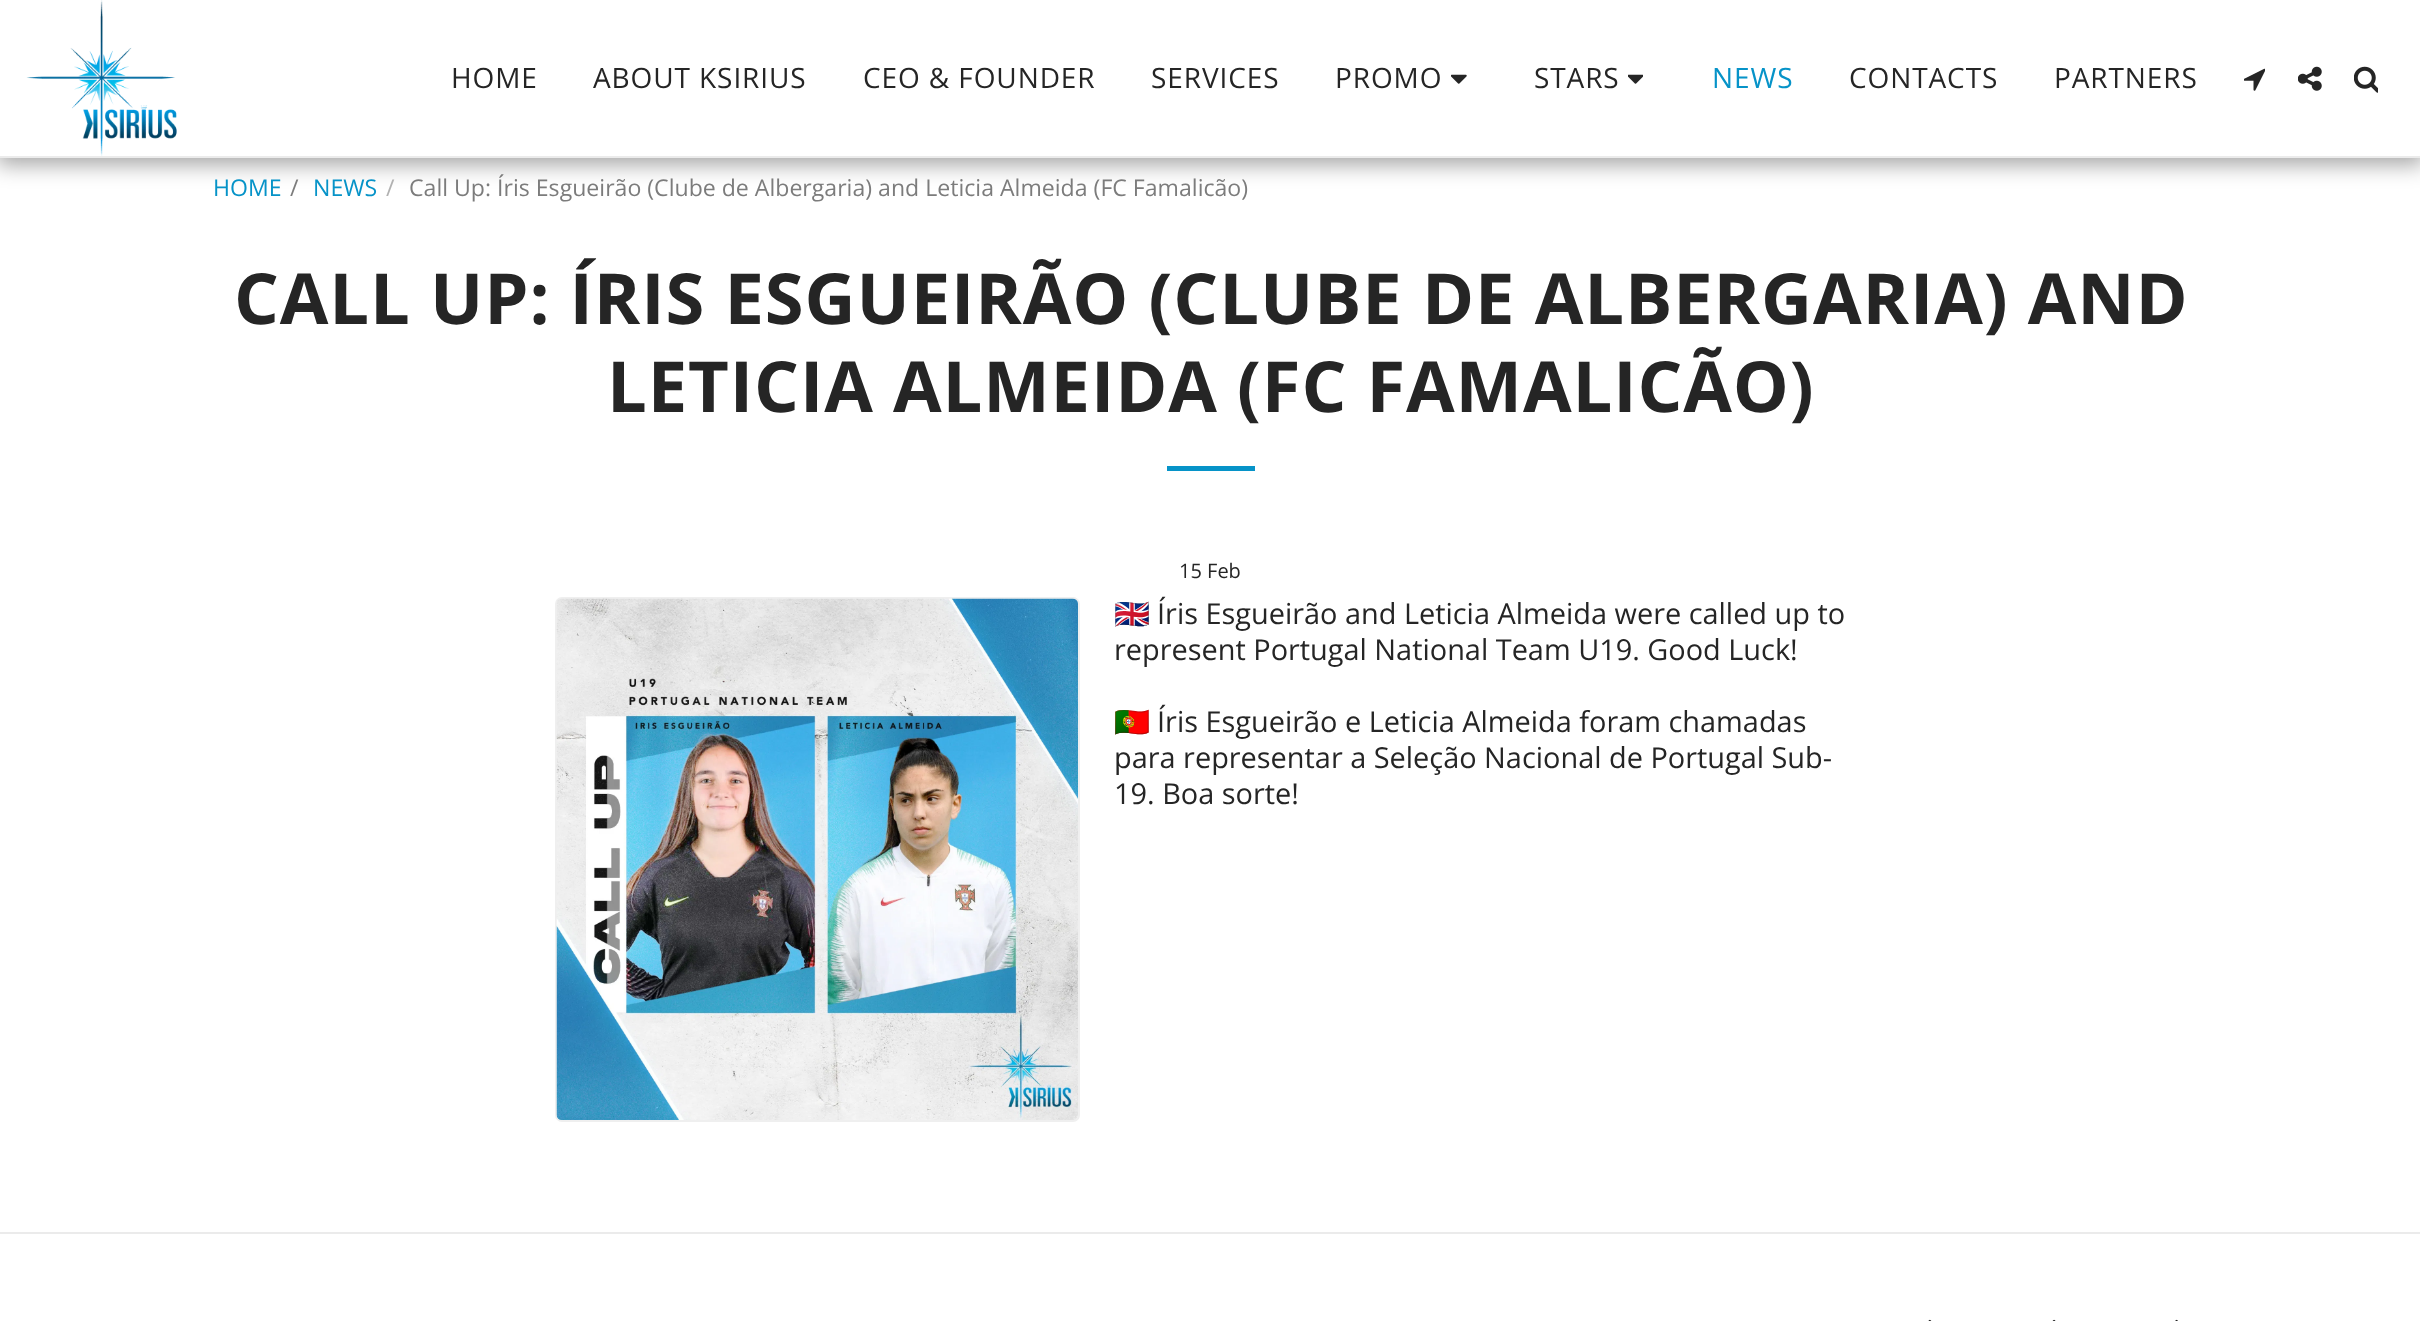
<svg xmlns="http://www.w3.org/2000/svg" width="2420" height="1321">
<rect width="100%" height="100%" fill="#fff"/>
<rect x="-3" width="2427" height="165" fill="#00000059" filter="blur(10.5px)"/>
<rect width="2420" height="156" fill="#fff"/>
<rect y="156" width="2420" height="2" fill="#ebebeb"/>
<image x="26" y="0" width="151" height="156" href="media/1.png"/>
<text x="451" y="88" style="font-family:Open Sans;font-size:28px;letter-spacing:0.9px;fill:#252525">HOME</text>
<text x="593" y="88" style="font-family:Open Sans;font-size:28px;letter-spacing:0.9px;fill:#252525">ABOUT KSIRIUS</text>
<text x="863" y="88" style="font-family:Open Sans;font-size:28px;letter-spacing:0.9px;fill:#252525">CEO &amp; FOUNDER</text>
<text x="1151" y="88" style="font-family:Open Sans;font-size:28px;letter-spacing:0.9px;fill:#252525">SERVICES</text>
<text x="1335" y="88" style="font-family:Open Sans;font-size:28px;letter-spacing:0.9px;fill:#252525">PROMO</text>
<image x="1451" y="74" width="16" height="10" href="media/2.png"/>
<text x="1534" y="88" style="font-family:Open Sans;font-size:28px;letter-spacing:0.9px;fill:#252525">STARS</text>
<image x="1628" y="74" width="15" height="10" href="media/3.png"/>
<text x="1712" y="88" style="font-family:Open Sans;font-size:28px;letter-spacing:0.9px;fill:#0693c8">NEWS</text>
<text x="1849" y="88" style="font-family:Open Sans;font-size:28px;letter-spacing:0.9px;fill:#252525">CONTACTS</text>
<text x="2054" y="88" style="font-family:Open Sans;font-size:28px;letter-spacing:0.9px;fill:#252525">PARTNERS</text>
<image x="2244" y="68" width="21" height="23" href="media/4.png"/>
<image x="2298" y="66" width="24" height="25" href="media/5.png"/>
<image x="2354" y="66" width="24" height="27" href="media/6.png"/>
<text x="213" y="196" style="font-family:Open Sans;font-size:23.1px;fill:#0693c8">HOME</text>
<text x="290" y="196" style="font-family:Open Sans;font-size:23.1px;fill:#7c7c7c">/</text>
<text x="313" y="196" style="font-family:Open Sans;font-size:23.1px;fill:#0693c8">NEWS</text>
<text x="386" y="196" style="font-family:Open Sans;font-size:23.1px;fill:#b1b1b1">/</text>
<text x="409" y="196" style="font-family:Open Sans;font-size:23.1px;fill:#7c7c7c">Call Up: Íris Esgueirão (Clube de Albergaria) and Leticia Almeida (FC Famalicão)</text>
<text x="234" y="324" style="font-family:Open Sans;font-size:70.5px;font-weight:bold;letter-spacing:0.9px;fill:#252525">CALL UP: ÍRIS ESGUEIRÃO (CLUBE DE ALBERGARIA) AND</text>
<text x="607" y="412" style="font-family:Open Sans;font-size:70.5px;font-weight:bold;letter-spacing:0.9px;fill:#252525">LETICIA ALMEIDA (FC FAMALICÃO)</text>
<rect x="1167" y="466" width="88" height="5" fill="#0693c8"/>
<text x="1179" y="578" style="font-family:Open Sans;font-size:20px;fill:#252525">15 Feb</text>
<rect x="556" y="598" width="523" height="523" rx="6" fill="none" stroke="#efefef" stroke-width="2"/>
<image x="556" y="598" width="522" height="522" href="media/7.png"/>
<text x="1114" y="624" style="font-family:Noto Color Emoji;font-size:28.9px;fill:#252525">🇬🇧</text>
<text x="1157" y="624" style="font-family:Open Sans;font-size:28.9px;fill:#252525">Íris Esgueirão and Leticia Almeida were called up to</text>
<text x="1114" y="660" style="font-family:Open Sans;font-size:28.9px;fill:#252525">represent Portugal National Team U19. Good Luck!</text>
<text x="1114" y="732" style="font-family:Noto Color Emoji;font-size:28.9px;fill:#252525">🇵🇹</text>
<text x="1157" y="732" style="font-family:Open Sans;font-size:28.9px;fill:#252525">Íris Esgueirão e Leticia Almeida foram chamadas</text>
<text x="1114" y="768" style="font-family:Open Sans;font-size:28.9px;fill:#252525">para representar a Seleção Nacional de Portugal Sub-</text>
<text x="1114" y="804" style="font-family:Open Sans;font-size:28.9px;fill:#252525">19. Boa sorte!</text>
<rect y="1232" width="2420" height="2" fill="#ebebeb"/>
<image x="1928" y="1319" width="4" height="2" href="media/8.png"/>
<image x="2052" y="1319" width="4" height="2" href="media/9.png"/>
<image x="2175" y="1319" width="3" height="2" href="media/10.png"/>
</svg>
